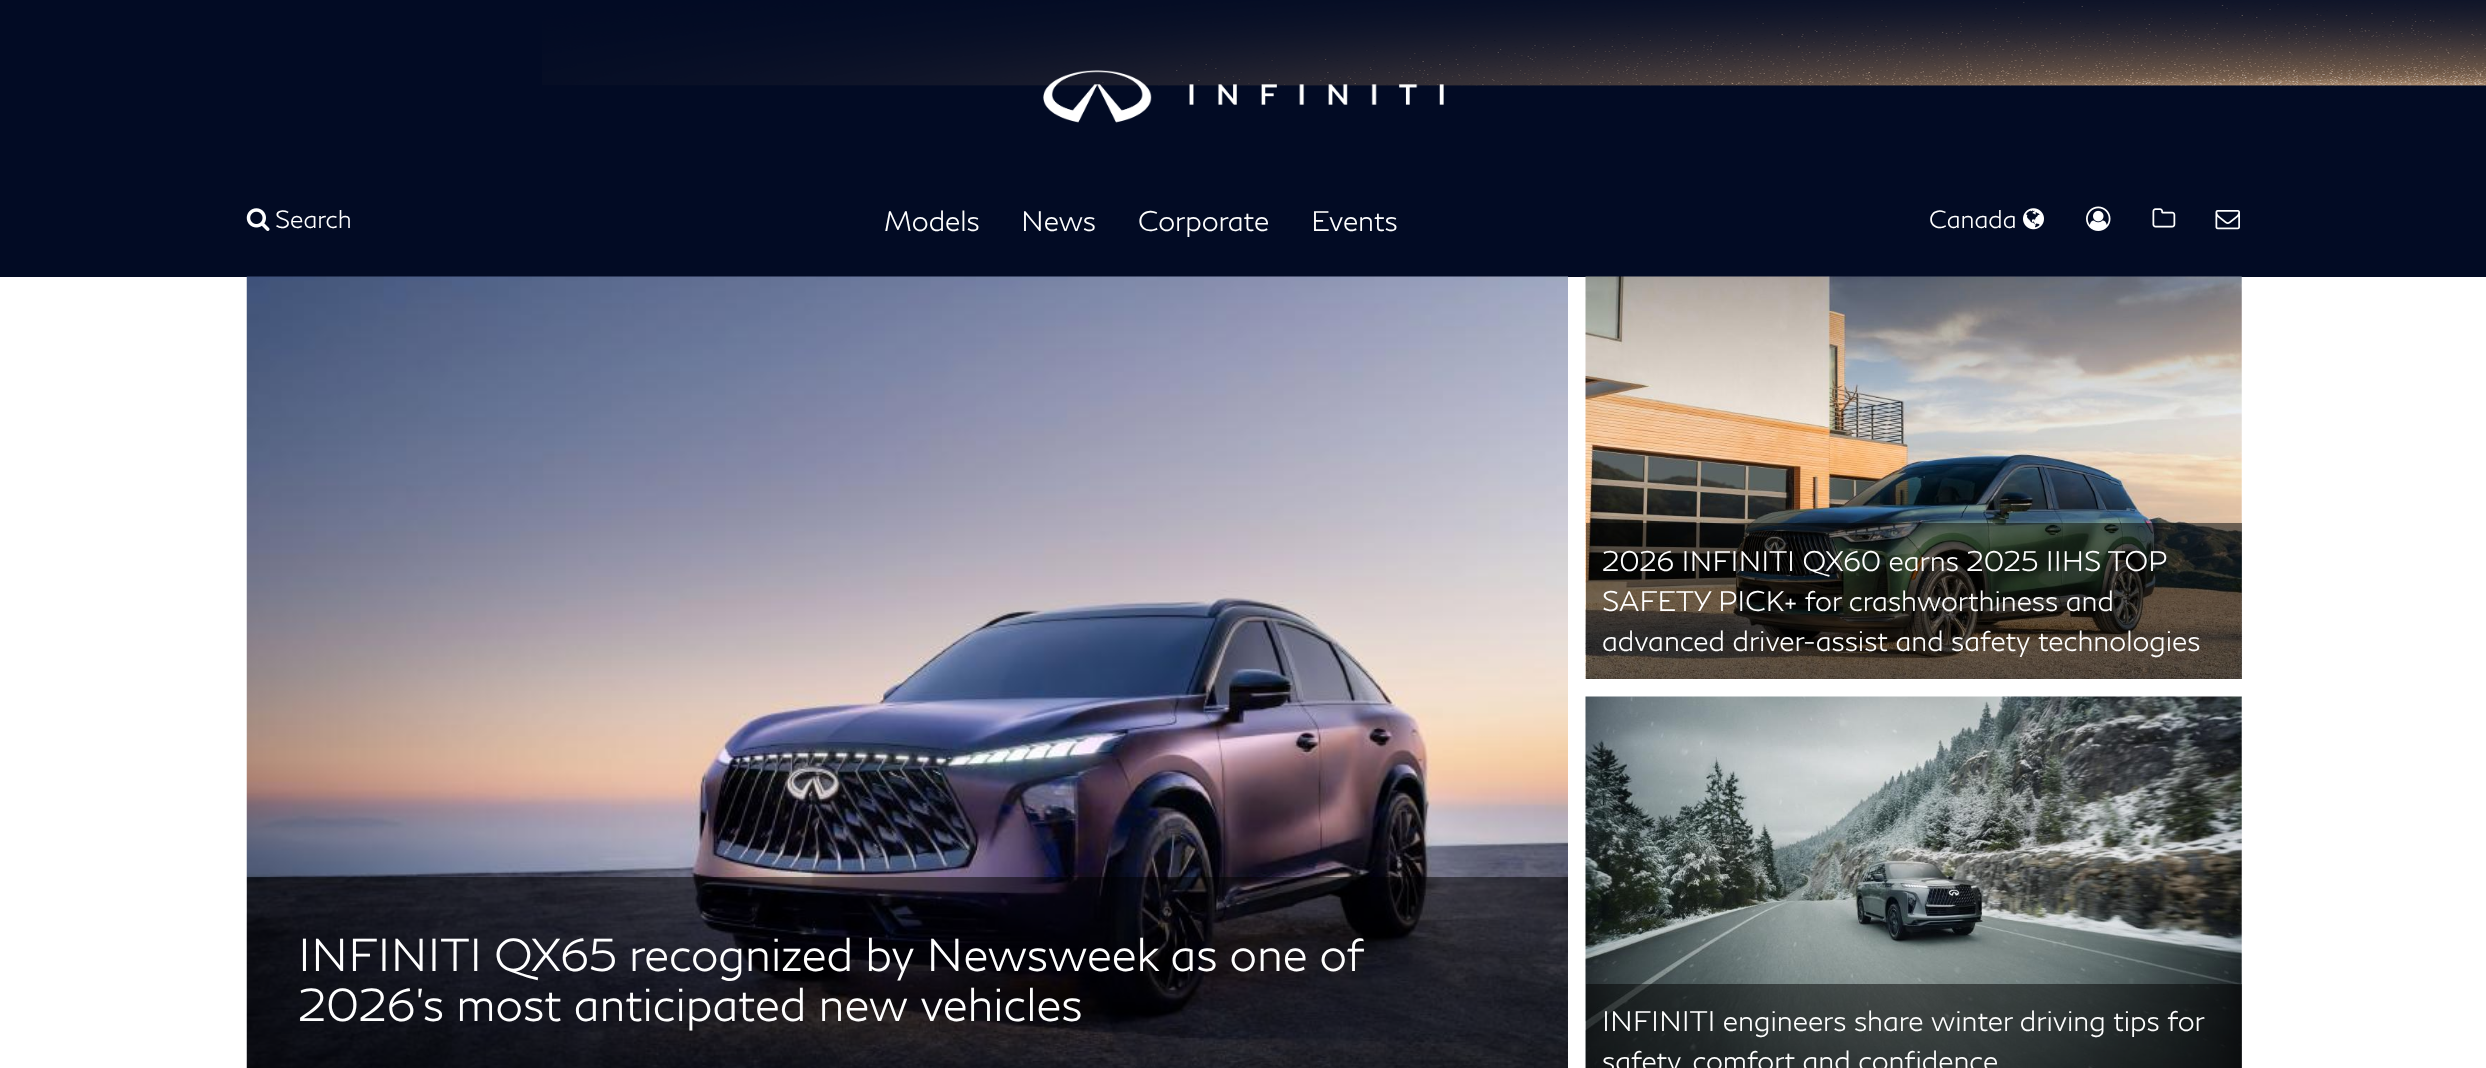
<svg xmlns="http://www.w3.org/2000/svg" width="2486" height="1068">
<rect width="100%" height="100%" fill="#fff"/>
<rect width="2486" height="277" fill="#020b24"/>
<image x="542" y="0" width="1944" height="86" href="media/1.png"/>
<image x="1043" y="70" width="401" height="53" href="media/2.png"/>
<image x="246" y="208" width="24" height="23" href="media/3.png"/>
<text x="275" y="228" style="font-family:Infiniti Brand;font-size:24.5px;font-weight:300;fill:#fff">Search</text>
<text x="884" y="231" style="font-family:Infiniti Brand;font-size:28px;font-weight:300;fill:#fff">Models</text>
<text x="1021" y="231" style="font-family:Infiniti Brand;font-size:28px;font-weight:300;fill:#fff">News</text>
<text x="1138" y="231" style="font-family:Infiniti Brand;font-size:28px;font-weight:300;fill:#fff">Corporate</text>
<text x="1311" y="231" style="font-family:Infiniti Brand;font-size:28px;font-weight:300;fill:#fff">Events</text>
<text x="1929" y="228" style="font-family:Infiniti Brand;font-size:24.5px;font-weight:300;fill:#fff">Canada</text>
<image x="2023" y="208" width="21" height="22" href="media/4.png"/>
<image x="2086" y="206" width="25" height="25" href="media/5.png"/>
<image x="2152" y="208" width="24" height="20" href="media/6.png"/>
<image x="2215" y="210" width="25" height="20" href="media/7.png"/>
<image x="246" y="276" width="1322" height="792" href="media/8.png"/>
<rect x="247" y="877" width="1321" height="191" fill="#00000080"/>
<text x="298" y="971" word-spacing="-0.25" style="font-family:Infiniti Brand;font-size:45.5px;font-weight:300;fill:#fff">INFINITI QX65 recognized by Newsweek as one of</text>
<text x="298" y="1021" style="font-family:Infiniti Brand;font-size:45.5px;font-weight:300;fill:#fff">2026’s most anticipated new vehicles</text>
<image x="1585" y="276" width="657" height="403" href="media/9.png"/>
<rect x="1586" y="523" width="656" height="156" fill="#00000080"/>
<text x="1602" y="571" style="font-family:Infiniti Brand;font-size:28px;font-weight:300;fill:#fff">2026 INFINITI QX60 earns 2025 IIHS TOP</text>
<text x="1602" y="611" style="font-family:Infiniti Brand;font-size:28px;font-weight:300;fill:#fff">SAFETY PICK+ for crashworthiness and</text>
<text x="1602" y="651" style="font-family:Infiniti Brand;font-size:28px;font-weight:300;fill:#fff">advanced driver-assist and safety technologies</text>
<image x="1585" y="696" width="657" height="372" href="media/10.png"/>
<rect x="1586" y="984" width="656" height="84" fill="#00000080"/>
<text x="1602" y="1031" style="font-family:Infiniti Brand;font-size:28px;font-weight:300;fill:#fff">INFINITI engineers share winter driving tips for</text>
<text x="1602" y="1071" style="font-family:Infiniti Brand;font-size:28px;font-weight:300;fill:#fff">safety, comfort and confidence</text>
</svg>
